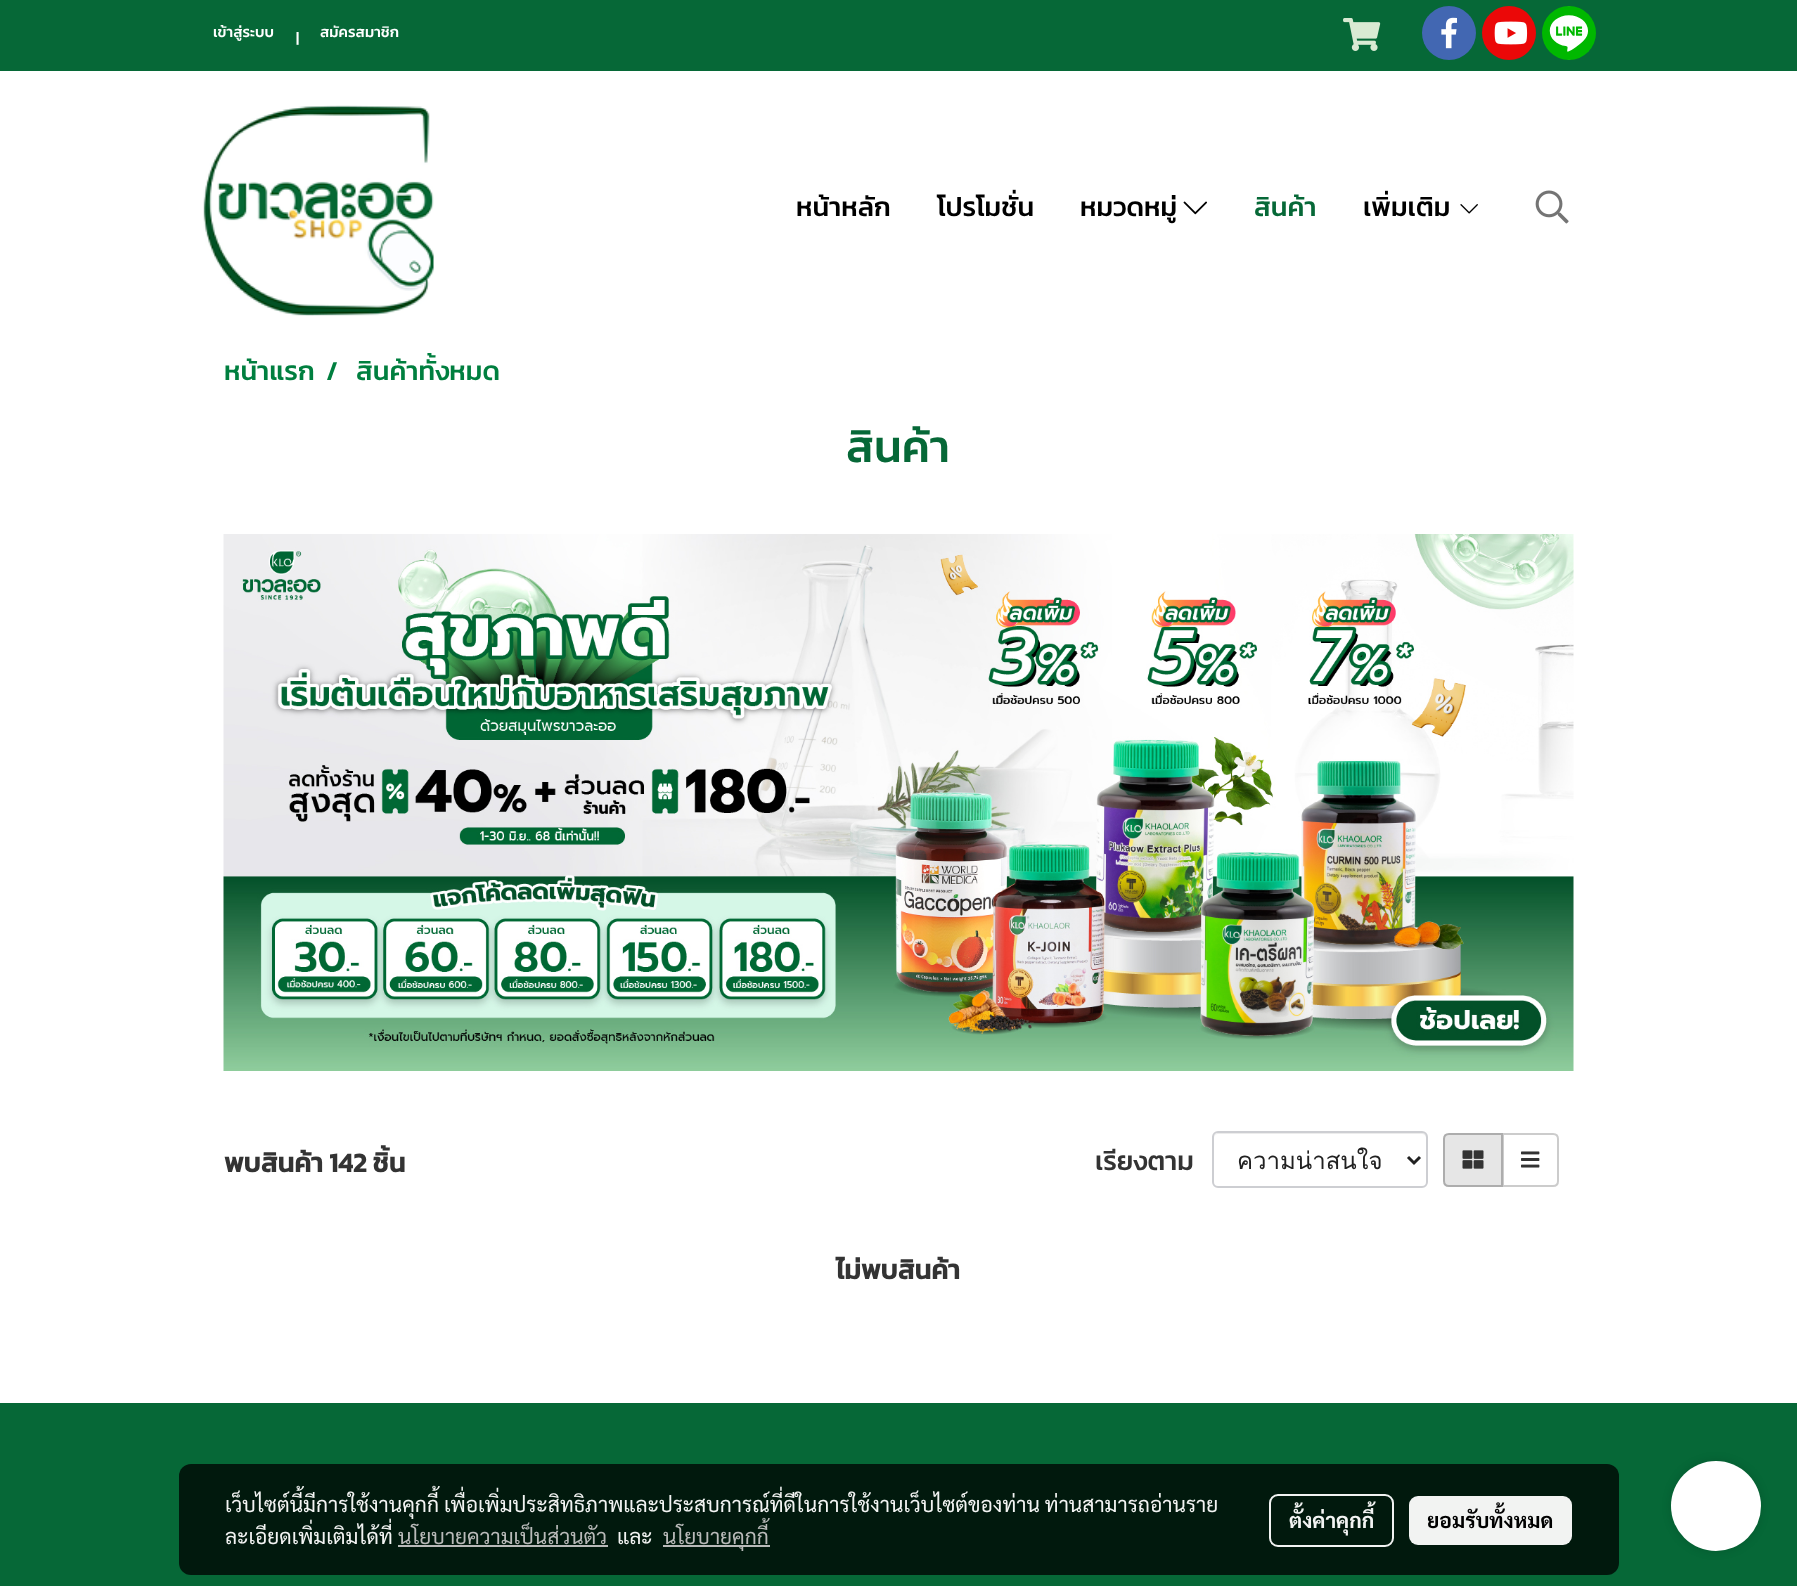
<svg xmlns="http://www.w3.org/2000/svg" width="1797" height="1586">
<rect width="100%" height="100%" fill="#fff"/>
<rect width="1797" height="71" fill="#066837"/>
<text x="213" y="37" style="font-family:Kanit;font-size:15px;font-weight:500;fill:#fff">เข้าสู่ระบบ</text>
<text x="296" y="43" style="font-family:Kanit;font-size:15px;font-weight:500;fill:#fff">|</text>
<text x="320" y="37" style="font-family:Kanit;font-size:15px;font-weight:500;fill:#fff">สมัครสมาชิก</text>
<image x="1343" y="18" width="38" height="33" href="media/1.png"/>
<circle cx="1449" cy="33" r="27" fill="#4267b2"/>
<image x="1441" y="17" width="16" height="32" href="media/2.png"/>
<circle cx="1509" cy="33" r="27" fill="#eb0808"/>
<image x="1494" y="21" width="34" height="24" href="media/3.png"/>
<circle cx="1569" cy="33" r="27" fill="#00b800"/>
<image x="1549" y="6" width="39" height="54" href="media/4.png"/>
<image x="203" y="105" width="231" height="211" href="media/5.png"/>
<text x="796" y="216" style="font-family:Kanit;font-size:27px;font-weight:500;fill:#000">หน้าหลัก</text>
<text x="937" y="216" style="font-family:Kanit;font-size:27px;font-weight:500;fill:#000">โปรโมชั่น</text>
<text x="1080" y="216" style="font-family:Kanit;font-size:27px;font-weight:500;fill:#000">หมวดหมู่</text>
<image x="1183" y="201" width="24" height="14" href="media/6.png"/>
<text x="1254" y="216" style="font-family:Kanit;font-size:27px;font-weight:500;fill:#066837">สินค้า</text>
<text x="1363" y="216" style="font-family:Kanit;font-size:27px;font-weight:500;fill:#000">เพิ่มเติม</text>
<image x="1460" y="204" width="18" height="10" href="media/7.png"/>
<image x="1535" y="190" width="34" height="34" href="media/8.png"/>
<text x="224" y="380" style="font-family:Kanit;font-size:27px;font-weight:500;fill:#007f3f">หน้าแรก</text>
<text x="326" y="380" style="font-family:Kanit;font-size:27px;font-weight:500;fill:#007f3f">/</text>
<text x="356" y="380" style="font-family:Kanit;font-size:27px;font-weight:500;fill:#007f3f">สินค้าทั้งหมด</text>
<text x="846" y="462" style="font-family:Kanit;font-size:45px;font-weight:500;fill:#066837">สินค้า</text>
<image x="223" y="534" width="1351" height="537" href="media/9.png"/>
<text x="224" y="1172" style="font-family:Kanit;font-size:27px;font-weight:bold;fill:#333">พบสินค้า 142 ชิ้น</text>
<text x="1095" y="1170" style="font-family:Kanit;font-size:27px;font-weight:500;fill:#333">เรียงตาม</text>
<path d="M1218 1134h204c2 0 4 2 4 4v47c1-1 1-2 1-3v-44c0-3-2-5-5-5h-203c-3 0-5 2-5 5c0-2 2-4 4-4z" fill="#ececec"/>
<rect x="1213" y="1132" width="214" height="55" rx="5" fill="none" stroke="#cdced2" stroke-width="2"/>
<path d="M1408 1157l6 6l6-6" fill="none" stroke="#212121" stroke-width="3"/>
<text x="1237" y="1169" style="font-family:Loma;font-size:24px;fill:#212121">ความน่าสนใจ</text>
<path d="M1503 1134h50c3 0 5 2 5 5v42c0 3-2 5-5 5h-50z" fill="none" stroke="#ccc" stroke-width="2"/>
<path d="M1449 1134h53v52h-53c-3 0-5-2-5-5v-42c0-3 2-5 5-5z" fill="#e6e6e6" stroke="#adadad" stroke-width="2"/>
<image x="1462" y="1150" width="22" height="19" href="media/10.png"/>
<image x="1521" y="1151" width="19" height="17" href="media/11.png"/>
<text x="836" y="1279" style="font-family:Kanit;font-size:27px;font-weight:bold;fill:#333">ไม่พบสินค้า</text>
<rect y="1403" width="1797" height="183" fill="#066837"/>
<rect x="179" y="1464" width="1440" height="111" rx="12" fill="#000000c2"/>
<text x="225" y="1512" style="font-family:Sarabun;font-size:21px;fill:#f3f4f3">เว็บไซต์นี้มีการใช้งานคุกกี้ เพื่อเพิ่มประสิทธิภาพและประสบการณ์ที่ดีในการใช้งานเว็บไซต์ของท่าน ท่านสามารถอ่านราย</text>
<text x="225" y="1544" style="font-family:Sarabun;font-size:21px;fill:#f3f4f3">ละเอียดเพิ่มเติมได้ที่</text>
<text x="398" y="1544" style="font-family:Sarabun;font-size:21px;fill:#b9bab9">นโยบายความเป็นส่วนตัว</text>
<rect x="398" y="1545" width="210" height="2" fill="#c2c2c2f2"/>
<text x="617" y="1544" style="font-family:Sarabun;font-size:21px;fill:#f3f4f3">และ</text>
<rect x="663" y="1545" width="107" height="2" fill="#c2c2c2f2"/>
<text x="663" y="1544" style="font-family:Sarabun;font-size:21px;fill:#b9bab9">นโยบายคุกกี้</text>
<rect x="1270" y="1495" width="123" height="51" rx="8" fill="none" stroke="#fffffff2" stroke-width="2"/>
<text x="1289" y="1528" style="font-family:Sarabun;font-size:21px;font-weight:bold;fill:#f3f4f3">ตั้งค่าคุกกี้</text>
<rect x="1409" y="1496" width="163" height="49" rx="9" fill="#fffffff2"/>
<text x="1427" y="1528" style="font-family:Sarabun;font-size:21px;font-weight:bold;fill:#000">ยอมรับทั้งหมด</text>
<rect x="1671" y="1461" width="90" height="90" rx="45" fill="#00000024" filter="blur(5px)"/>
<circle cx="1716" cy="1506" r="45" fill="#fff"/>
</svg>
